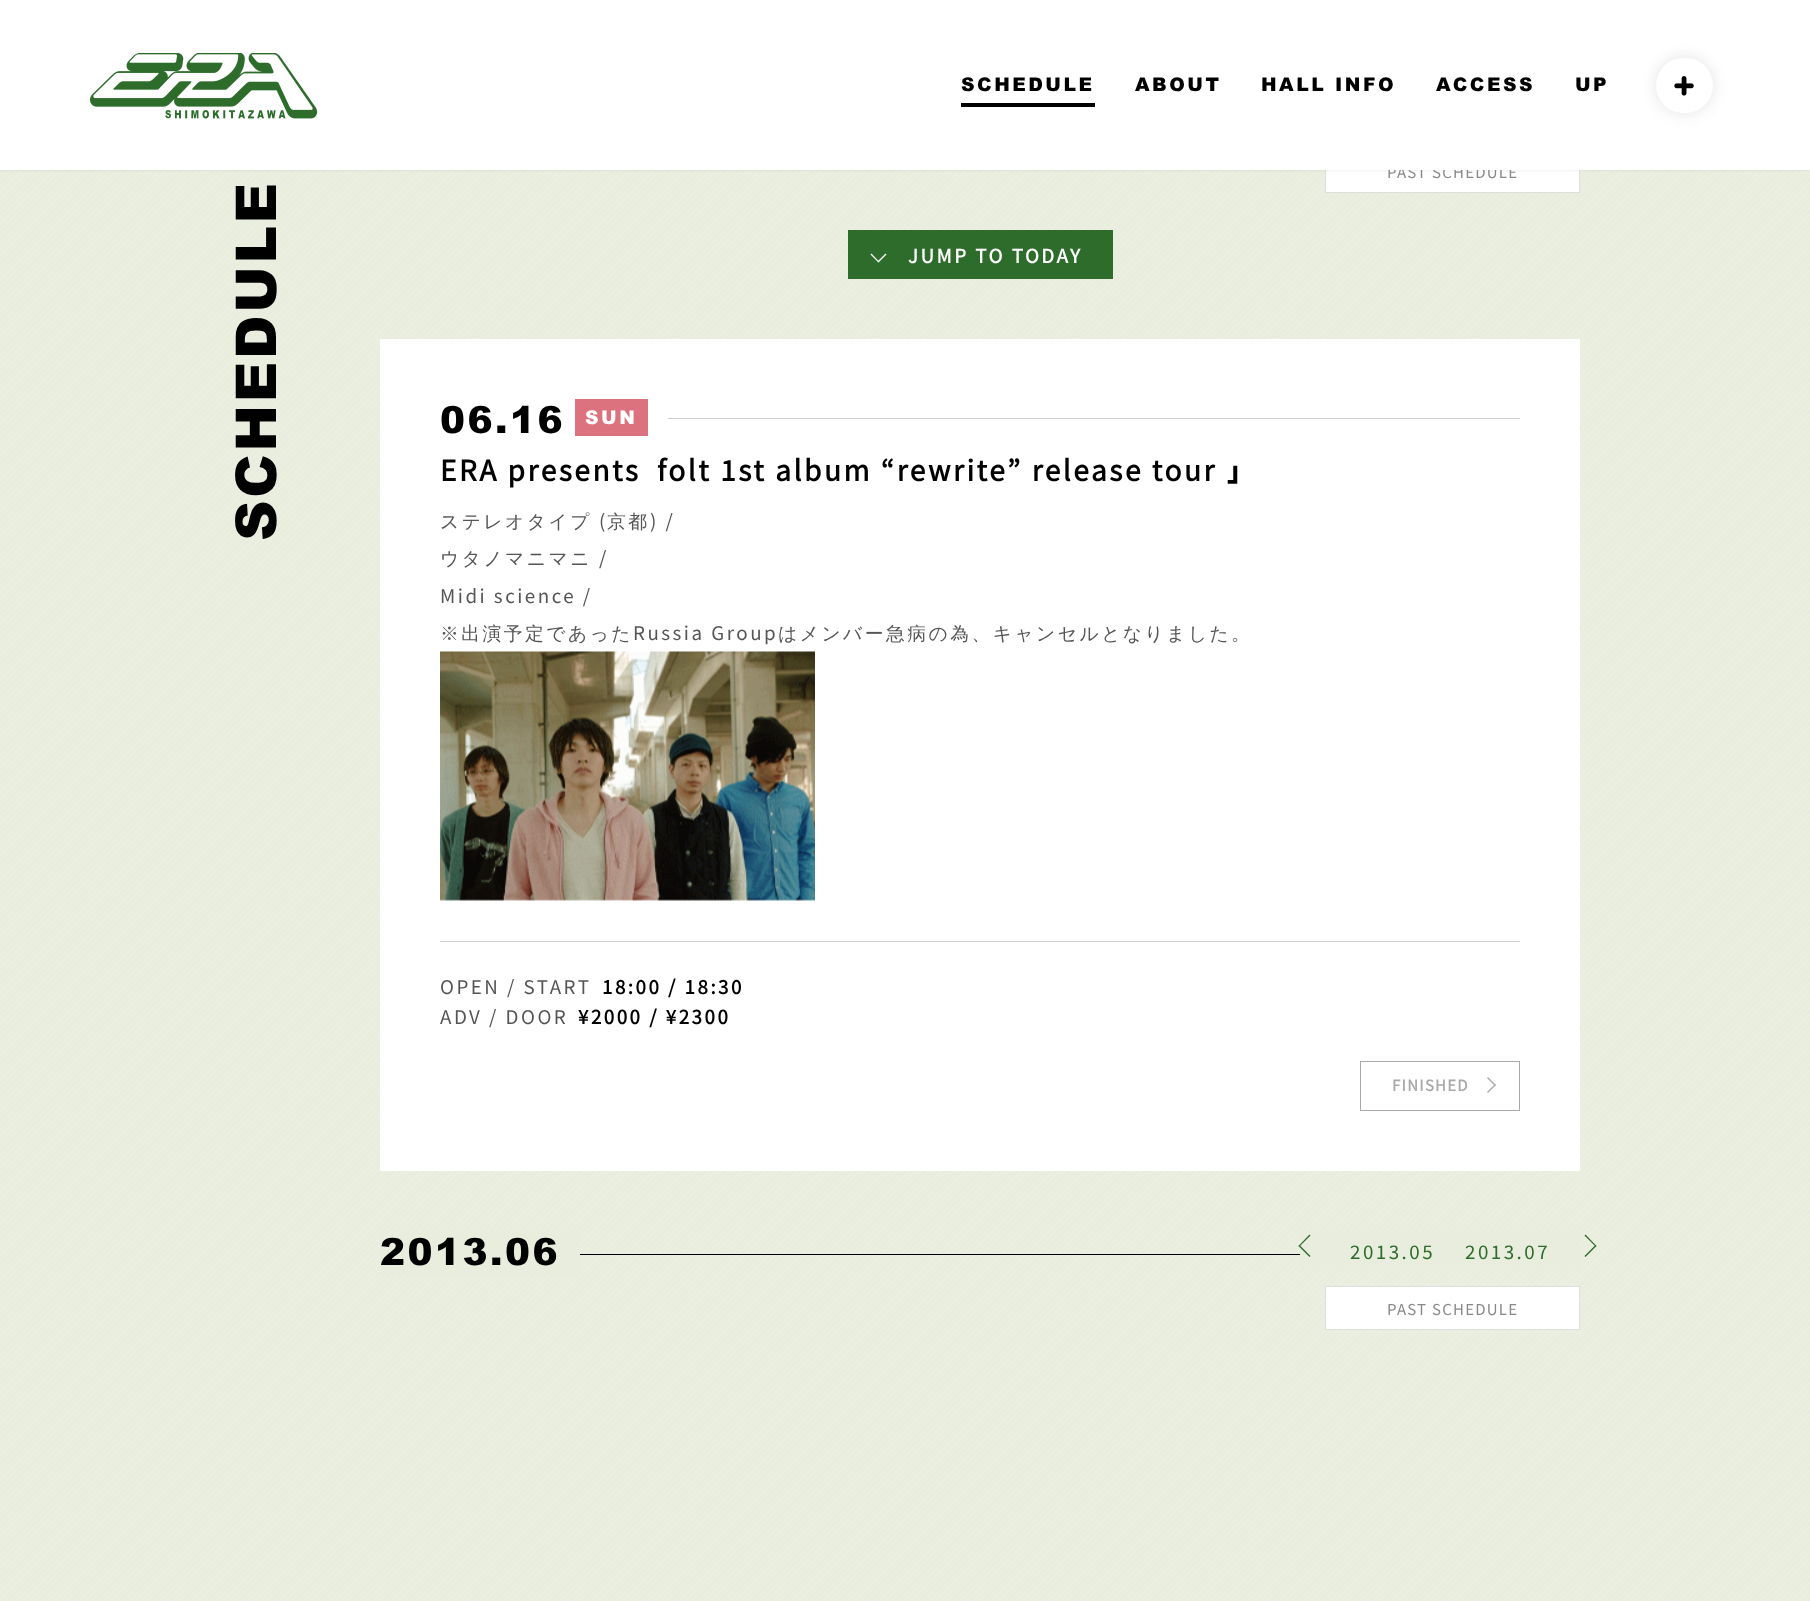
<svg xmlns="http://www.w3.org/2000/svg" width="1810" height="1601">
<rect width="100%" height="100%" fill="#e8eddd"/>
<image x="0" y="170" width="1810" height="1431" href="media/1.png"/>
<rect x="1326" y="170" width="253" height="22" fill="#fff"/>
<rect x="1325.5" y="149.5" width="254" height="43" fill="none" stroke="#dedede"/>
<rect y="1" width="1810" height="170" fill="#0000000d" filter="blur(1px)"/>
<text x="1387" y="178" style="font-family:Noto Sans JP;font-size:15px;letter-spacing:1.25px;fill:#888">PAST SCHEDULE</text>
<rect width="1810" height="170" fill="#fff"/>
<image x="90" y="53" width="228" height="66" href="media/2.png"/>
<rect x="961" y="103" width="134" height="4" fill="#000"/>
<text x="961" y="91" style="font-family:Arial;font-size:18.75px;font-weight:900;letter-spacing:2.5px;fill:#000">SCHEDULE</text>
<text x="1135" y="91" style="font-family:Arial;font-size:18.75px;font-weight:900;letter-spacing:2.5px;fill:#000">ABOUT</text>
<text x="1261" y="91" style="font-family:Arial;font-size:18.75px;font-weight:900;letter-spacing:2.5px;fill:#000">HALL INFO</text>
<text x="1436" y="91" style="font-family:Arial;font-size:18.75px;font-weight:900;letter-spacing:2.5px;fill:#000">ACCESS</text>
<text x="1575" y="91" style="font-family:Arial;font-size:18.75px;font-weight:900;letter-spacing:2.5px;fill:#000">UP</text>
<rect x="1656" y="58" width="57" height="55" rx="27.5" fill="#c8c8c880" filter="blur(8px)"/>
<rect x="1656" y="58" width="57" height="55" rx="27.5" fill="#fff"/>
<image x="1674" y="76" width="20" height="20" href="media/3.png"/>
<text x="276" y="541" transform="rotate(-90 276 541)" style="font-family:Arial;font-size:56.25px;font-weight:900;letter-spacing:2.5px;fill:#000">SCHEDULE</text>
<rect x="848" y="230" width="265" height="49" fill="#2d6c2b"/>
<path d="M885.5 253.5l1 1l-8 8l-1-1z" fill="#fff"/>
<path d="M871.5 253.5l7.5 8l-.5 1l-8-8z" fill="#fff"/>
<text x="908" y="263" style="font-family:Noto Sans JP;font-size:18.75px;font-weight:bold;letter-spacing:2.5px;fill:#fff">JUMP TO TODAY</text>
<rect x="380" y="339" width="1200" height="832" fill="#fff"/>
<text x="440" y="433" style="font-family:Arial;font-size:37.5px;font-weight:900;letter-spacing:2.5px;fill:#000">06.16</text>
<rect x="575" y="399" width="73" height="37" fill="#db727e"/>
<text x="585" y="424" style="font-family:Arial;font-size:18.75px;font-weight:900;letter-spacing:2.5px;fill:#fff">SUN</text>
<rect x="668" y="418" width="852" height="1" fill="#ccc"/>
<text x="440" y="481" style="font-family:Noto Sans JP;font-size:28.1px;font-weight:bold;letter-spacing:2.5px;fill:#000">ERA presents</text>
<text x="657" y="481" style="font-family:Noto Sans JP;font-size:28.1px;font-weight:bold;letter-spacing:2.5px;fill:#000">folt 1st album “rewrite” release tour</text>
<text x="1227" y="481" style="font-family:Noto Sans JP;font-size:28.1px;font-weight:900;letter-spacing:2.5px;fill:#000">」</text>
<text x="440" y="528" style="font-family:WenQuanYi Zen Hei;font-size:18.75px;font-weight:500;letter-spacing:2.5px;fill:#555">ステレオタイプ</text>
<text x="599" y="528" style="font-family:Noto Sans JP;font-size:18.75px;letter-spacing:2.5px;fill:#555">(</text>
<text x="607" y="528" style="font-family:WenQuanYi Zen Hei;font-size:18.75px;font-weight:500;letter-spacing:2.5px;fill:#555">京都</text>
<text x="650" y="528" style="font-family:Noto Sans JP;font-size:18.75px;letter-spacing:2.5px;fill:#555">) /</text>
<text x="440" y="565" style="font-family:WenQuanYi Zen Hei;font-size:18.75px;font-weight:500;letter-spacing:2.5px;fill:#555">ウタノマニマニ</text>
<text x="599" y="565" style="font-family:Noto Sans JP;font-size:18.75px;letter-spacing:2.5px;fill:#555">/</text>
<text x="440" y="603" style="font-family:Noto Sans JP;font-size:18.75px;letter-spacing:2.5px;fill:#555">Midi science /</text>
<text x="440" y="640" style="font-family:WenQuanYi Zen Hei;font-size:18.75px;font-weight:500;letter-spacing:2.5px;fill:#555">※出演予定であった</text>
<text x="633" y="640" style="font-family:Noto Sans JP;font-size:18.75px;letter-spacing:2.5px;fill:#555">Russia Group</text>
<text x="778" y="640" style="font-family:WenQuanYi Zen Hei;font-size:18.75px;font-weight:500;letter-spacing:2.5px;fill:#555">はメンバー急病の為、キャンセルとなりました。</text>
<image x="440" y="651" width="375" height="250" href="media/4.png"/>
<rect x="440" y="941" width="1080" height="1" fill="#ccc"/>
<text x="440" y="994" style="font-family:Noto Sans JP;font-size:18.75px;letter-spacing:2.5px;fill:#555">OPEN / START</text>
<text x="602" y="994" style="font-family:Noto Sans JP;font-size:18.75px;font-weight:bold;letter-spacing:2.5px;fill:#000">18:00 / 18:30</text>
<text x="440" y="1024" style="font-family:Noto Sans JP;font-size:18.75px;letter-spacing:2.5px;fill:#555">ADV / DOOR</text>
<text x="578" y="1024" style="font-family:Noto Sans JP;font-size:18.75px;font-weight:bold;letter-spacing:2.5px;fill:#000">¥2000 / ¥2300</text>
<rect x="1360.5" y="1061.5" width="159" height="49" fill="none" stroke="#aaa"/>
<text x="1392" y="1091" style="font-family:Noto Sans JP;font-size:15px;font-weight:bold;letter-spacing:1.25px;fill:#aaa">FINISHED</text>
<path d="M1488 1077l8 8l-1 1l-8-8z" fill="#aaa"/>
<path d="M1495 1084l1 1l-8 8l-1-1z" fill="#aaa"/>
<rect x="380" y="1231" width="200" height="45" fill="#e8eddd"/>
<text x="380" y="1265" style="font-family:Arial;font-size:37.5px;font-weight:900;letter-spacing:2.5px;fill:#000">2013.06</text>
<rect x="580" y="1254" width="720" height="1" fill="#000"/>
<rect x="1300" y="1231" width="280" height="40" fill="#e8eddd"/>
<path d="M1310.5 1256l-1 1l-11-11l1-1z" fill="#2d6c2b"/>
<path d="M1310.5 1235.5l-11 11l-1-.5l11-11.5z" fill="#2d6c2b"/>
<text x="1350" y="1259" style="font-family:Noto Sans JP;font-size:18.75px;letter-spacing:2.5px;fill:#2d6c2b">2013.05</text>
<text x="1465" y="1259" style="font-family:Noto Sans JP;font-size:18.75px;letter-spacing:2.5px;fill:#2d6c2b">2013.07</text>
<path d="M1584.5 1235.5l1-1l11 11.5l-1 .5z" fill="#2d6c2b"/>
<path d="M1584.5 1256l11-11l1 1l-11 11z" fill="#2d6c2b"/>
<rect x="1325.5" y="1286.5" width="254" height="43" fill="#fff" stroke="#dedede"/>
<text x="1387" y="1315" style="font-family:Noto Sans JP;font-size:15px;letter-spacing:1.25px;fill:#888">PAST SCHEDULE</text>
</svg>
